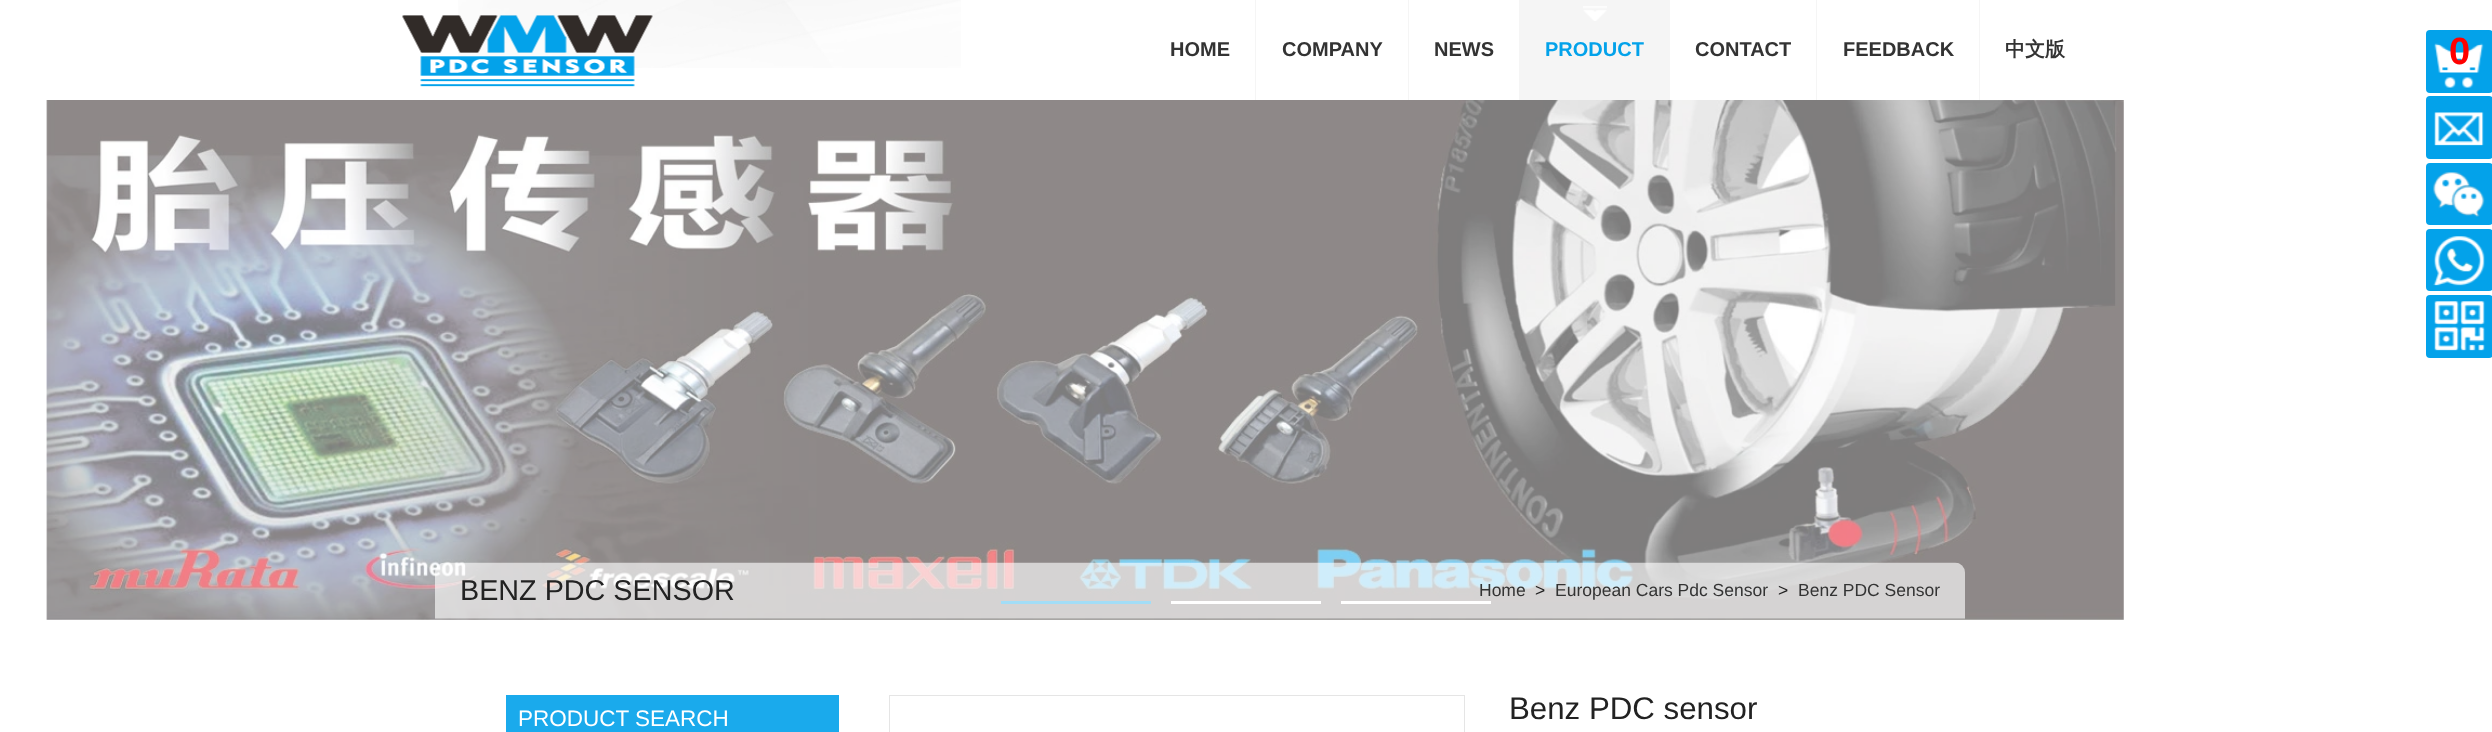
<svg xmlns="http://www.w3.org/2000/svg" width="2492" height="732">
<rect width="100%" height="100%" fill="#fff"/>
<image x="458" y="0" width="503" height="68" href="media/1.png"/>
<image x="402" y="15" width="251" height="72" href="media/2.png"/>
<text x="1170" y="56" style="font-family:Liberation Sans;font-size:20px;font-weight:bold;fill:#333">HOME</text>
<rect x="1255" width="1" height="100" fill="#f5f5f5"/>
<text x="1282" y="56" style="font-family:Liberation Sans;font-size:20px;font-weight:bold;fill:#333">COMPANY</text>
<rect x="1408" width="1" height="100" fill="#f5f5f5"/>
<text x="1434" y="56" style="font-family:Liberation Sans;font-size:20px;font-weight:bold;fill:#333">NEWS</text>
<rect x="1519" width="151" height="100" fill="#f5f5f5"/>
<rect x="1816" width="1" height="100" fill="#f5f5f5"/>
<rect x="1979" width="1" height="100" fill="#f5f5f5"/>
<text x="2005" y="56" style="font-family:WenQuanYi Zen Hei;font-size:20px;font-weight:bold;fill:#333">中文版</text>
<image x="1583" y="6" width="24" height="15" href="media/3.png"/>
<text x="1545" y="56" style="font-family:Liberation Sans;font-size:20px;font-weight:bold;fill:#03a2ea">PRODUCT</text>
<text x="1695" y="56" style="font-family:Liberation Sans;font-size:20px;font-weight:bold;fill:#333">CONTACT</text>
<text x="1843" y="56" style="font-family:Liberation Sans;font-size:20px;font-weight:bold;fill:#333">FEEDBACK</text>
<rect x="2426" y="30" width="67" height="63" rx="4" fill="#03a2ea"/>
<image x="2434" y="43" width="50" height="45" href="media/4.png"/>
<text x="2449" y="64" style="font-family:Liberation Sans;font-size:38px;font-weight:bold;fill:#f00">0</text>
<rect x="2426" y="96" width="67" height="63" rx="4" fill="#03a2ea"/>
<image x="2434" y="112" width="50" height="34" href="media/5.png"/>
<rect x="2426" y="163" width="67" height="62" rx="4" fill="#03a2ea"/>
<image x="2433" y="172" width="52" height="45" href="media/6.png"/>
<rect x="2426" y="229" width="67" height="62" rx="4" fill="#03a2ea"/>
<image x="2433" y="236" width="52" height="50" href="media/7.png"/>
<rect x="2426" y="295" width="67" height="63" rx="4" fill="#03a2ea"/>
<image x="2434" y="301" width="51" height="50" href="media/8.png"/>
<image x="46" y="100" width="2078" height="520" href="media/9.png"/>
<rect x="1001" y="601" width="150" height="3" fill="#03a2ea"/>
<rect x="1171" y="601" width="150" height="3" fill="#fff"/>
<rect x="1341" y="601" width="150" height="3" fill="#fff"/>
<image x="435" y="562" width="1530" height="57" href="media/10.png"/>
<text x="460" y="600" style="font-family:Liberation Sans;font-size:28.75px;fill:#222">BENZ PDC SENSOR</text>
<text x="1479" y="596" style="font-family:Liberation Sans;font-size:17.5px;fill:#333">Home</text>
<text x="1535" y="596" style="font-family:Liberation Sans;font-size:17.5px;fill:#222">&gt;</text>
<text x="1555" y="596" style="font-family:Liberation Sans;font-size:17.5px;fill:#333">European Cars Pdc Sensor</text>
<text x="1778" y="596" style="font-family:Liberation Sans;font-size:17.5px;fill:#222">&gt;</text>
<text x="1798" y="596" style="font-family:Liberation Sans;font-size:17.5px;fill:#333">Benz PDC Sensor</text>
<rect x="506" y="695" width="333" height="37" fill="#1aaaec"/>
<text x="518" y="726" style="font-family:Liberation Sans;font-size:22.5px;fill:#fff">PRODUCT SEARCH</text>
<rect x="889.5" y="695.5" width="575" height="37" fill="none" stroke="#e5e5e5"/>
<text x="1509" y="719" style="font-family:Liberation Sans;font-size:31.25px;fill:#222">Benz PDC sensor</text>
</svg>
